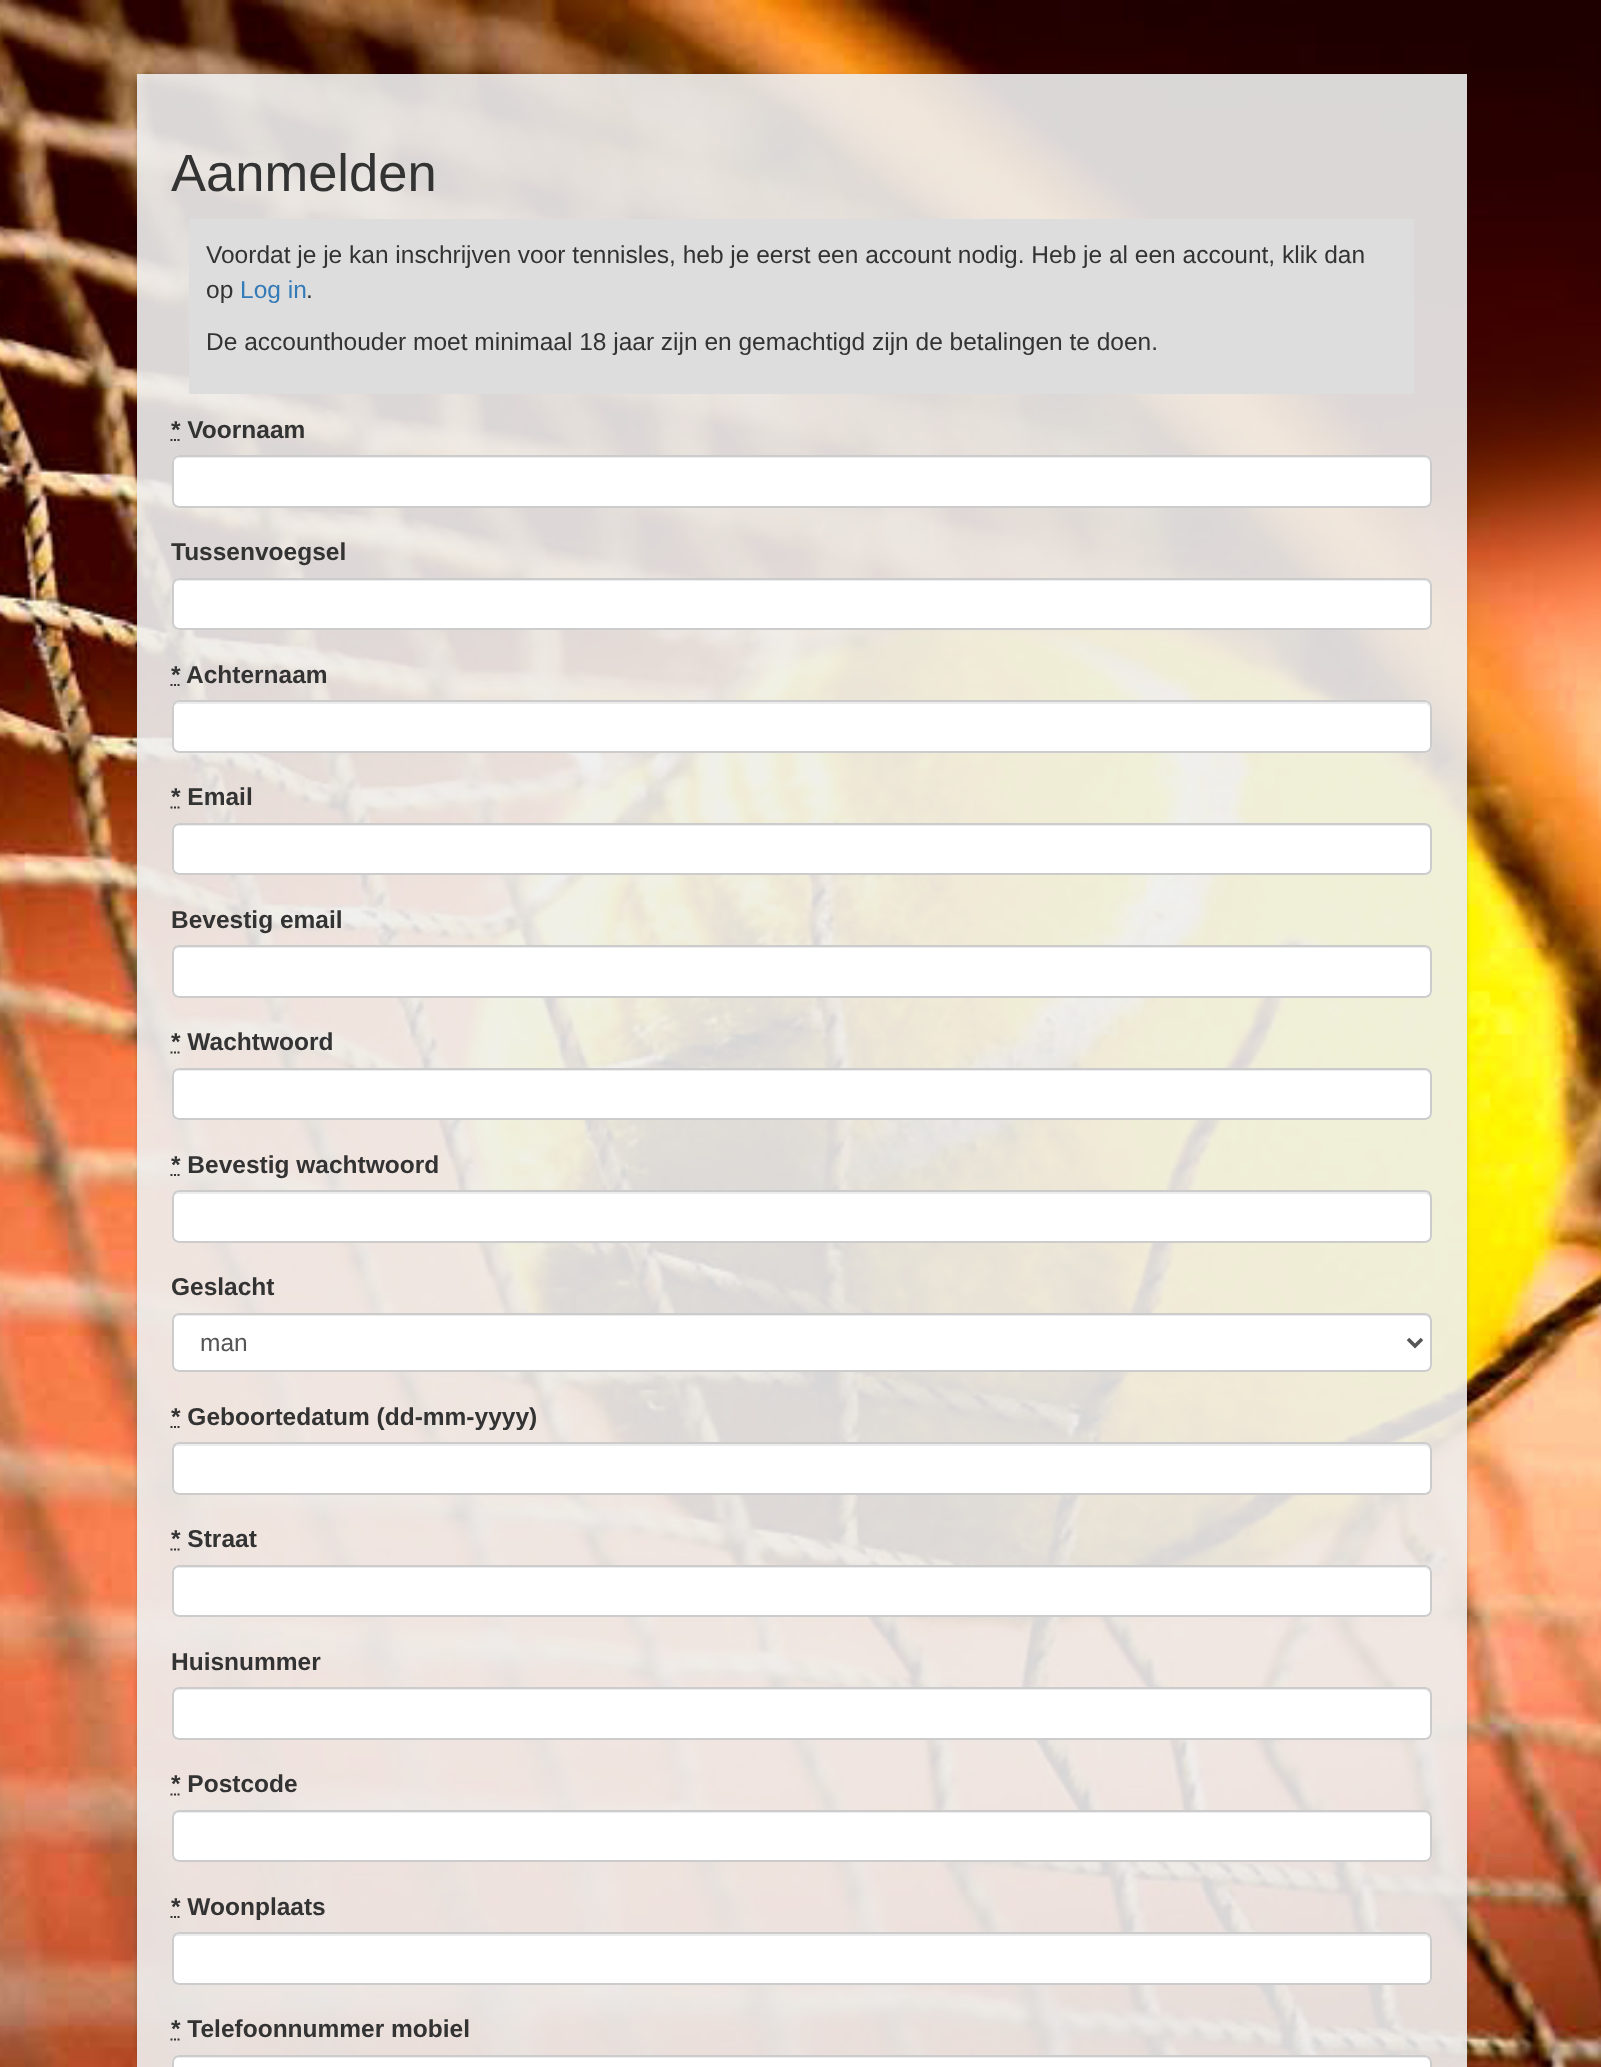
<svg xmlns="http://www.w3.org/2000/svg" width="1601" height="2067">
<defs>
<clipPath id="clip1"><path d="M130 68h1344v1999h-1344zm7 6h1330v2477c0 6-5 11-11 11h-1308c-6 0-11-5-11-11z" clip-rule="evenodd"/></clipPath>
</defs>
<rect width="100%" height="100%" fill="#fff"/>
<image x="0" y="0" width="1601" height="2067" href="media/1.png"/>
<g clip-path="url(#clip1)">
<rect x="137" y="75" width="1330" height="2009" rx="11" fill="#00000026" filter="blur(2px)"/>
</g>
<rect x="137" y="74" width="1330" height="1993" fill="#eeeeeee6"/>
<text x="171" y="191" style="font-family:Liberation Sans;font-size:52.5px;fill:#333">Aanmelden</text>
<rect x="189" y="219" width="1225" height="175" fill="#ddd"/>
<text x="206" y="263" style="font-family:Liberation Sans;font-size:24.5px;fill:#333">Voordat je je kan inschrijven voor tennisles, heb je eerst een account nodig. Heb je al een account, klik dan</text>
<text x="206" y="298" style="font-family:Liberation Sans;font-size:24.5px;fill:#333">op</text>
<text x="240" y="298" style="font-family:Liberation Sans;font-size:24.5px;fill:#337ab7">Log in</text>
<text x="306" y="298" style="font-family:Liberation Sans;font-size:24.5px;fill:#333">.</text>
<text x="206" y="350" style="font-family:Liberation Sans;font-size:24.5px;fill:#333">De accounthouder moet minimaal 18 jaar zijn en gemachtigd zijn de betalingen te doen.</text>
<text x="171" y="438" style="font-family:Liberation Sans;font-size:24.5px;font-weight:bold;fill:#333">* Voornaam</text>
<path d="M170.5 440h2m1.5 0h2m1.5 0h2" fill="none" stroke="#333" stroke-width="1.8"/>
<rect x="172" y="455" width="1260" height="53" rx="7" fill="#fff"/>
<path d="M178 458h1246c3 0 6 3 6 6v-2c0-3-2-5-5-5h-1247c-3 0-5 2-5 5v2c0-3 3-6 5-6z" fill="#ececec"/>
<rect x="173" y="456" width="1258" height="51" rx="6" fill="none" stroke="#ccc" stroke-width="2"/>
<text x="171" y="560" style="font-family:Liberation Sans;font-size:24.5px;font-weight:bold;fill:#333">Tussenvoegsel</text>
<rect x="172" y="578" width="1260" height="52" rx="7" fill="#fff"/>
<path d="M178 581h1246c3 0 6 2 6 5v-2c0-3-2-5-5-5h-1247c-3 0-5 2-5 5v2c0-3 3-5 5-5z" fill="#ececec"/>
<rect x="173" y="579" width="1258" height="50" rx="6" fill="none" stroke="#ccc" stroke-width="2"/>
<text x="171" y="683" style="font-family:Liberation Sans;font-size:24.5px;font-weight:bold;fill:#333">*</text>
<path d="M170.5 685h2m1.5 0h2m1.5 0h2" fill="none" stroke="#333" stroke-width="1.8"/>
<text x="186" y="683" style="font-family:Liberation Sans;font-size:24.5px;font-weight:bold;fill:#333">Achternaam</text>
<rect x="172" y="700" width="1260" height="53" rx="7" fill="#fff"/>
<path d="M178 704h1246c3 0 6 2 6 5v-2c0-3-2-5-5-5h-1247c-3 0-5 2-5 5v2c0-3 3-5 5-5z" fill="#ececec"/>
<rect x="173" y="701" width="1258" height="51" rx="6" fill="none" stroke="#ccc" stroke-width="2"/>
<text x="171" y="805" style="font-family:Liberation Sans;font-size:24.5px;font-weight:bold;fill:#333">* Email</text>
<path d="M170.5 807.5h2m1.5 0h2m1.5 0h2" fill="none" stroke="#333" stroke-width="1.8"/>
<rect x="172" y="823" width="1260" height="52" rx="7" fill="#fff"/>
<path d="M178 826h1246c3 0 6 2 6 5v-2c0-3-2-5-5-5h-1247c-3 0-5 2-5 5v2c0-3 3-5 5-5z" fill="#ececec"/>
<rect x="173" y="824" width="1258" height="50" rx="6" fill="none" stroke="#ccc" stroke-width="2"/>
<text x="171" y="928" style="font-family:Liberation Sans;font-size:24.5px;font-weight:bold;fill:#333">Bevestig email</text>
<rect x="172" y="945" width="1260" height="53" rx="7" fill="#fff"/>
<path d="M178 948h1246c3 0 6 3 6 6v-2c0-3-2-5-5-5h-1247c-3 0-5 2-5 5v2c0-3 3-6 5-6z" fill="#ececec"/>
<rect x="173" y="946" width="1258" height="51" rx="6" fill="none" stroke="#ccc" stroke-width="2"/>
<text x="171" y="1050" style="font-family:Liberation Sans;font-size:24.5px;font-weight:bold;fill:#333">* Wachtwoord</text>
<path d="M170.5 1052.5h2m1.5 0h2m1.5 0h2" fill="none" stroke="#333" stroke-width="1.8"/>
<rect x="172" y="1068" width="1260" height="52" rx="7" fill="#fff"/>
<path d="M178 1071h1246c3 0 6 2 6 5v-2c0-3-2-5-5-5h-1247c-3 0-5 2-5 5v2c0-3 3-5 5-5z" fill="#ececec"/>
<rect x="173" y="1069" width="1258" height="50" rx="6" fill="none" stroke="#ccc" stroke-width="2"/>
<path d="M170.5 1175h2m1.5 0h2m1.5 0h2" fill="none" stroke="#333" stroke-width="1.8"/>
<text x="171" y="1173" style="font-family:Liberation Sans;font-size:24.5px;font-weight:bold;fill:#333">* Bevestig wachtwoord</text>
<rect x="172" y="1190" width="1260" height="53" rx="7" fill="#fff"/>
<path d="M178 1194h1246c3 0 6 2 6 5v-2c0-3-2-5-5-5h-1247c-3 0-5 2-5 5v2c0-3 3-5 5-5z" fill="#ececec"/>
<rect x="173" y="1191" width="1258" height="51" rx="6" fill="none" stroke="#ccc" stroke-width="2"/>
<text x="171" y="1295" style="font-family:Liberation Sans;font-size:24.5px;font-weight:bold;fill:#333">Geslacht</text>
<rect x="172" y="1313" width="1260" height="59" rx="7" fill="#fff"/>
<path d="M178 1316h1246c3 0 6 2 6 5v-2c0-3-2-5-5-5h-1247c-3 0-5 2-5 5v2c0-3 3-5 5-5z" fill="#ececec"/>
<rect x="173" y="1314" width="1258" height="57" rx="6" fill="none" stroke="#ccc" stroke-width="2"/>
<path d="M1408 1339l7 7l7-7" fill="none" stroke="#555" stroke-width="3.5"/>
<text x="200" y="1351" style="font-family:Liberation Sans;font-size:24.5px;fill:#555">man</text>
<path d="M170.5 1427h2m1.5 0h2m1.5 0h2" fill="none" stroke="#333" stroke-width="1.8"/>
<text x="171" y="1425" style="font-family:Liberation Sans;font-size:24.5px;font-weight:bold;fill:#333">* Geboortedatum (dd-mm-yyyy)</text>
<rect x="172" y="1442" width="1260" height="53" rx="7" fill="#fff"/>
<path d="M178 1446h1246c3 0 6 2 6 5v-2c0-3-2-5-5-5h-1247c-3 0-5 2-5 5v2c0-3 3-5 5-5z" fill="#ececec"/>
<rect x="173" y="1443" width="1258" height="51" rx="6" fill="none" stroke="#ccc" stroke-width="2"/>
<text x="171" y="1547" style="font-family:Liberation Sans;font-size:24.5px;font-weight:bold;fill:#333">* Straat</text>
<path d="M170.5 1549.5h2m1.5 0h2m1.5 0h2" fill="none" stroke="#333" stroke-width="1.8"/>
<rect x="172" y="1565" width="1260" height="52" rx="7" fill="#fff"/>
<path d="M178 1568h1246c3 0 6 2 6 5v-2c0-3-2-5-5-5h-1247c-3 0-5 2-5 5v2c0-3 3-5 5-5z" fill="#ececec"/>
<rect x="173" y="1566" width="1258" height="50" rx="6" fill="none" stroke="#ccc" stroke-width="2"/>
<text x="171" y="1670" style="font-family:Liberation Sans;font-size:24.5px;font-weight:bold;fill:#333">Huisnummer</text>
<rect x="172" y="1687" width="1260" height="53" rx="7" fill="#fff"/>
<path d="M178 1690h1246c3 0 6 3 6 6v-2c0-3-2-5-5-5h-1247c-3 0-5 2-5 5v2c0-3 3-6 5-6z" fill="#ececec"/>
<rect x="173" y="1688" width="1258" height="51" rx="6" fill="none" stroke="#ccc" stroke-width="2"/>
<text x="171" y="1792" style="font-family:Liberation Sans;font-size:24.5px;font-weight:bold;fill:#333">* Postcode</text>
<path d="M170.5 1794.5h2m1.5 0h2m1.5 0h2" fill="none" stroke="#333" stroke-width="1.8"/>
<rect x="172" y="1810" width="1260" height="52" rx="7" fill="#fff"/>
<path d="M178 1813h1246c3 0 6 2 6 5v-2c0-3-2-5-5-5h-1247c-3 0-5 2-5 5v2c0-3 3-5 5-5z" fill="#ececec"/>
<rect x="173" y="1811" width="1258" height="50" rx="6" fill="none" stroke="#ccc" stroke-width="2"/>
<path d="M170.5 1917h2m1.5 0h2m1.5 0h2" fill="none" stroke="#333" stroke-width="1.8"/>
<text x="171" y="1915" style="font-family:Liberation Sans;font-size:24.5px;font-weight:bold;fill:#333">* Woonplaats</text>
<rect x="172" y="1932" width="1260" height="53" rx="7" fill="#fff"/>
<path d="M178 1936h1246c3 0 6 2 6 5v-2c0-3-2-5-5-5h-1247c-3 0-5 2-5 5v2c0-3 3-5 5-5z" fill="#ececec"/>
<rect x="173" y="1933" width="1258" height="51" rx="6" fill="none" stroke="#ccc" stroke-width="2"/>
<text x="171" y="2037" style="font-family:Liberation Sans;font-size:24.5px;font-weight:bold;fill:#333">* Telefoonnummer mobiel</text>
<path d="M170.5 2039.5h2m1.5 0h2m1.5 0h2" fill="none" stroke="#333" stroke-width="1.8"/>
<rect x="172" y="2055" width="1260" height="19" rx="7" fill="#fff"/>
<path d="M178 2058h1246c3 0 6 2 6 5v-2c0-3-2-5-5-5h-1247c-3 0-5 2-5 5v2c0-3 3-5 5-5z" fill="#ececec"/>
<rect x="173" y="2056" width="1258" height="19" rx="6" fill="none" stroke="#ccc" stroke-width="2"/>
</svg>
